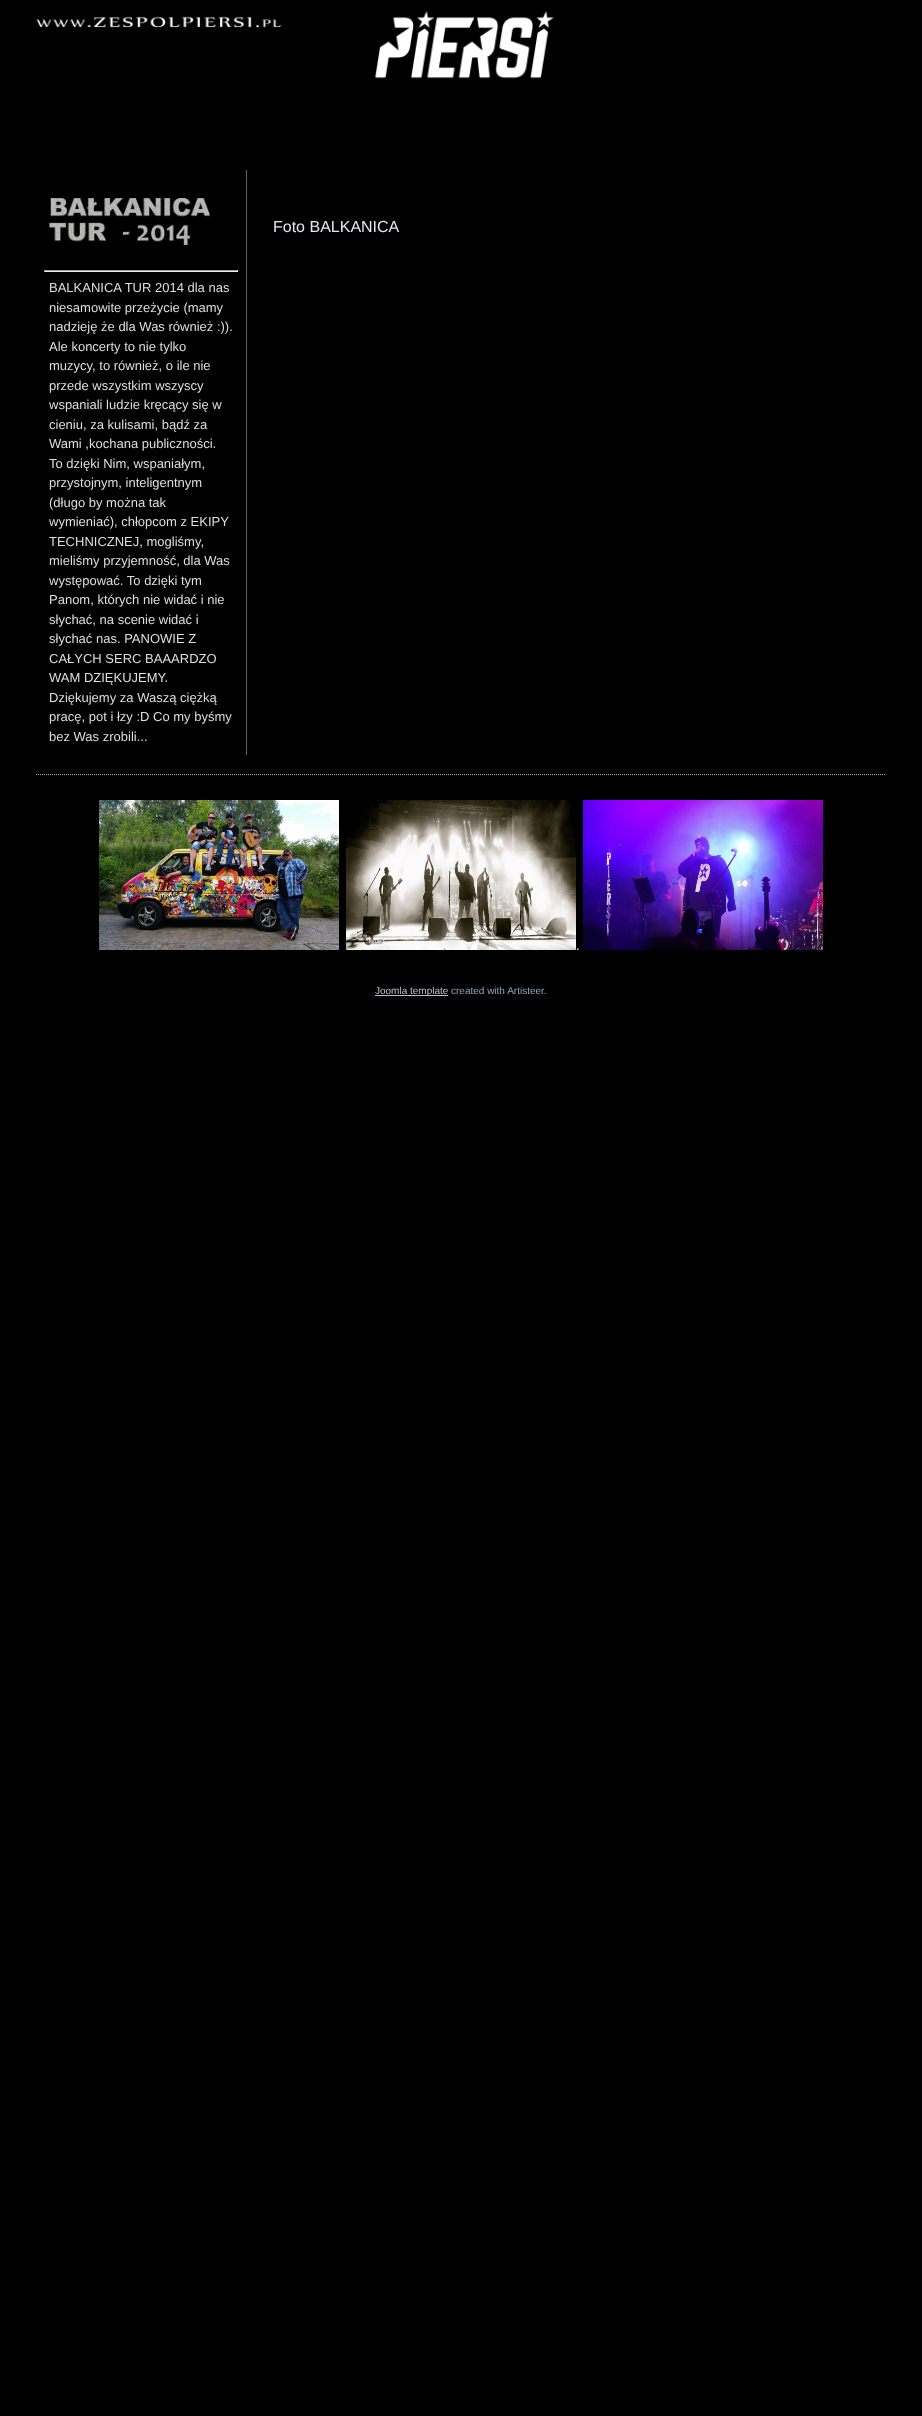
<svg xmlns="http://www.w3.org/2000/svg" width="922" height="2416">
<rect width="100%" height="100%" fill="#000"/>
<image x="36" y="11" width="518" height="68" href="media/1.png"/>
<text x="273" y="232" style="font-family:Liberation Sans;font-size:16px;fill:#e2e8ee">Foto BALKANICA</text>
<rect x="246" y="170" width="1" height="585" fill="#666"/>
<image x="49" y="198" width="161" height="47" href="media/2.png"/>
<rect x="44" y="270" width="194" height="1" fill="#9f9f9f"/>
<rect x="237" y="270" width="1" height="2" fill="#eee"/>
<rect x="44" y="271" width="194" height="1" fill="#eee"/>
<rect x="44" y="270" width="1" height="2" fill="#9f9f9f"/>
<text x="49" y="292" style="font-family:Liberation Sans;font-size:13px;fill:#dedede">BALKANICA TUR 2014 dla nas</text>
<text x="49" y="312" style="font-family:Liberation Sans;font-size:13px;fill:#dedede">niesamowite przeżycie (mamy</text>
<text x="49" y="331" style="font-family:Liberation Sans;font-size:13px;fill:#dedede">nadzieję że dla Was również :)).</text>
<text x="49" y="351" style="font-family:Liberation Sans;font-size:13px;fill:#dedede">Ale koncerty to nie tylko</text>
<text x="49" y="370" style="font-family:Liberation Sans;font-size:13px;fill:#dedede">muzycy, to również, o ile nie</text>
<text x="49" y="390" style="font-family:Liberation Sans;font-size:13px;fill:#dedede">przede wszystkim wszyscy</text>
<text x="49" y="409" style="font-family:Liberation Sans;font-size:13px;fill:#dedede">wspaniali ludzie kręcący się w</text>
<text x="49" y="429" style="font-family:Liberation Sans;font-size:13px;fill:#dedede">cieniu, za kulisami, bądź za</text>
<text x="49" y="448" style="font-family:Liberation Sans;font-size:13px;fill:#dedede">Wami ,kochana publiczności.</text>
<text x="49" y="468" style="font-family:Liberation Sans;font-size:13px;fill:#dedede">To dzięki Nim, wspaniałym,</text>
<text x="49" y="487" style="font-family:Liberation Sans;font-size:13px;fill:#dedede">przystojnym, inteligentnym</text>
<text x="49" y="507" style="font-family:Liberation Sans;font-size:13px;fill:#dedede">(długo by można tak</text>
<text x="49" y="526" style="font-family:Liberation Sans;font-size:13px;fill:#dedede">wymieniać), chłopcom z EKIPY</text>
<text x="49" y="546" style="font-family:Liberation Sans;font-size:13px;fill:#dedede">TECHNICZNEJ, mogliśmy,</text>
<text x="49" y="565" style="font-family:Liberation Sans;font-size:13px;fill:#dedede">mieliśmy przyjemność, dla Was</text>
<text x="49" y="585" style="font-family:Liberation Sans;font-size:13px;fill:#dedede">występować. To dzięki tym</text>
<text x="49" y="604" style="font-family:Liberation Sans;font-size:13px;fill:#dedede">Panom, których nie widać i nie</text>
<text x="49" y="624" style="font-family:Liberation Sans;font-size:13px;fill:#dedede">słychać, na scenie widać i</text>
<text x="49" y="643" style="font-family:Liberation Sans;font-size:13px;fill:#dedede">słychać nas. PANOWIE Z</text>
<text x="49" y="663" style="font-family:Liberation Sans;font-size:13px;fill:#dedede">CAŁYCH SERC BAAARDZO</text>
<text x="49" y="682" style="font-family:Liberation Sans;font-size:13px;fill:#dedede">WAM DZIĘKUJEMY.</text>
<text x="49" y="702" style="font-family:Liberation Sans;font-size:13px;fill:#dedede">Dziękujemy za Waszą ciężką</text>
<text x="49" y="721" style="font-family:Liberation Sans;font-size:13px;fill:#dedede">pracę, pot i łzy :D Co my byśmy</text>
<text x="49" y="741" style="font-family:Liberation Sans;font-size:13px;fill:#dedede">bez Was zrobili...</text>
<path d="M36 774.5h850" fill="none" stroke="#9cafc4" stroke-dasharray="1 1"/>
<image x="99" y="800" width="240" height="150" href="media/3.png"/>
<image x="346" y="800" width="230" height="150" href="media/4.png"/>
<text x="576" y="950" style="font-family:Liberation Sans;font-size:13px;fill:#fff">.</text>
<image x="583" y="800" width="240" height="150" href="media/5.png"/>
<rect x="375" y="995" width="73" height="1" fill="#b9c2cb"/>
<text x="375" y="994" style="font-family:Liberation Sans;font-size:10px;fill:#b9c2cb">Joomla template</text>
<text x="451" y="994" style="font-family:Liberation Sans;font-size:10px;fill:#8fa5bc">created with Artisteer.</text>
</svg>
